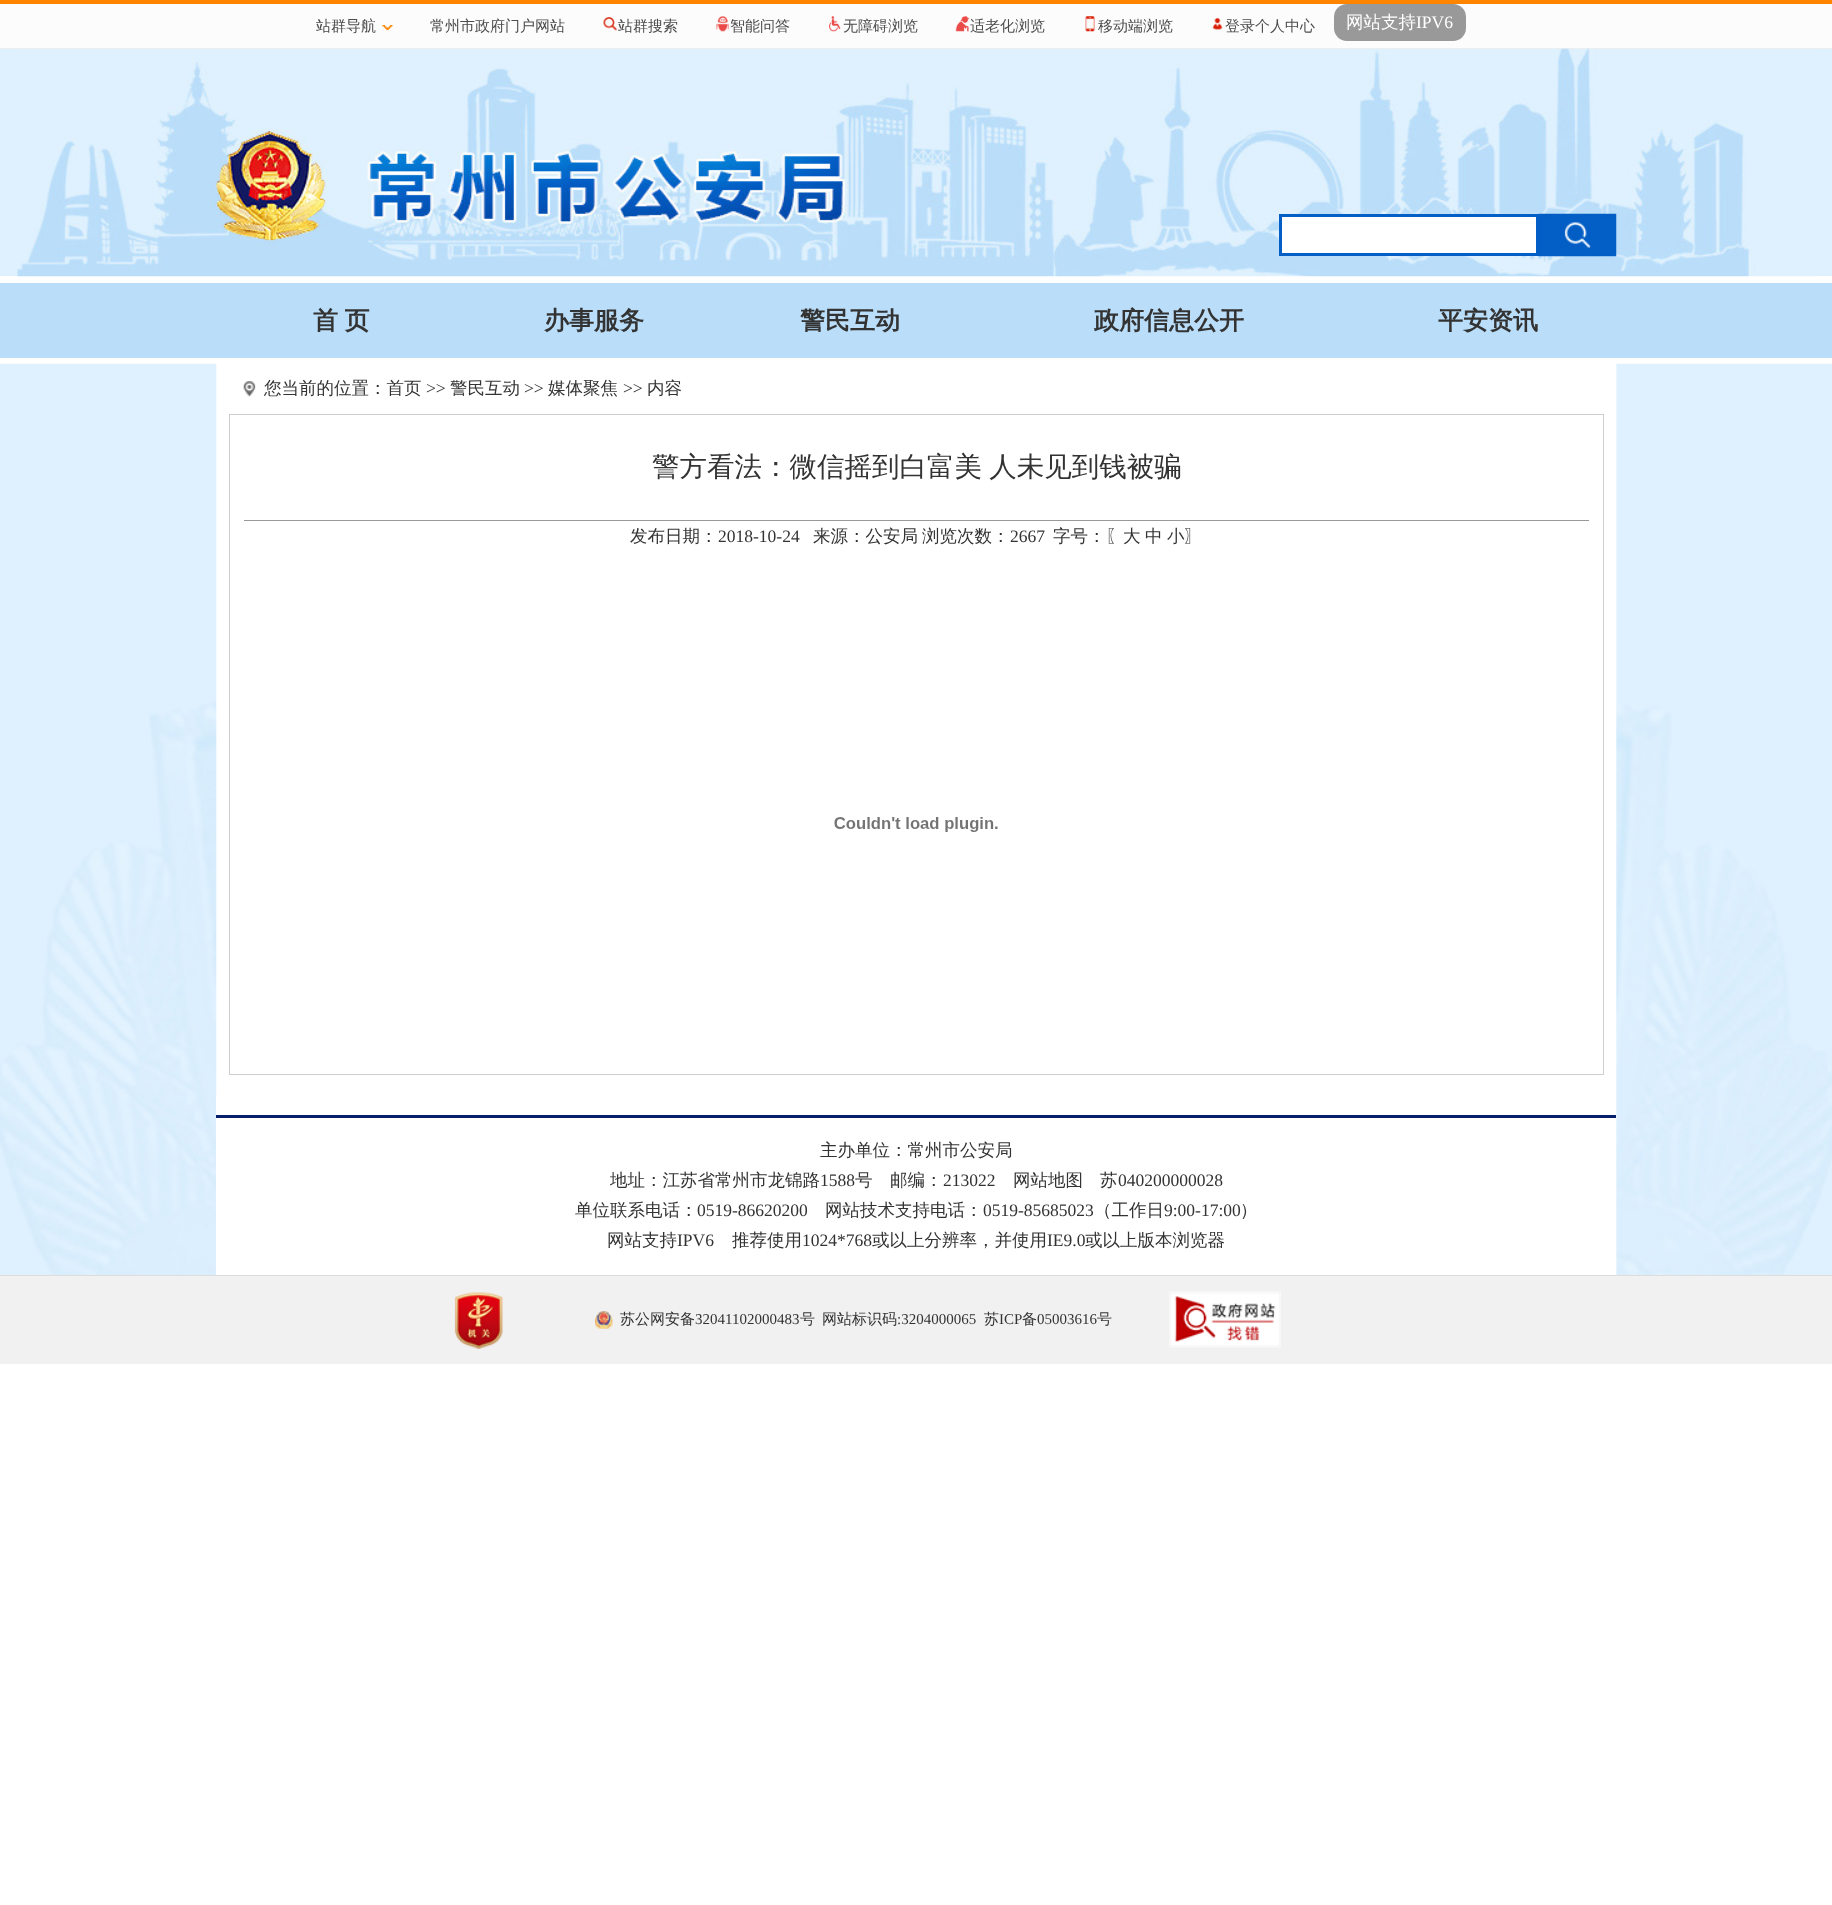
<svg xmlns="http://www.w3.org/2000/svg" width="1832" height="1905">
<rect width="100%" height="100%" fill="#fff"/>
<rect y="4" width="1832" height="44" fill="#fcfcfc"/>
<rect width="1832" height="4" fill="#ff8500"/>
<rect y="48" width="1832" height="1" fill="#eee"/>
<text x="316" y="31" style="font-family:WenQuanYi Zen Hei;font-size:15px;font-weight:500;fill:#4c4c4c">站群导航</text>
<image x="382" y="25" width="11" height="6" href="media/1.png"/>
<text x="430" y="31" style="font-family:WenQuanYi Zen Hei;font-size:15px;font-weight:500;fill:#4c4c4c">常州市政府门户网站</text>
<image x="603" y="17" width="14" height="14" href="media/2.png"/>
<text x="618" y="31" style="font-family:WenQuanYi Zen Hei;font-size:15px;font-weight:500;fill:#4c4c4c">站群搜索</text>
<image x="716" y="16" width="13" height="16" href="media/3.png"/>
<text x="730" y="31" style="font-family:WenQuanYi Zen Hei;font-size:15px;font-weight:500;fill:#4c4c4c">智能问答</text>
<image x="829" y="16" width="12" height="16" href="media/4.png"/>
<text x="843" y="31" style="font-family:WenQuanYi Zen Hei;font-size:15px;font-weight:500;fill:#4c4c4c">无障碍浏览</text>
<image x="955" y="16" width="15" height="16" href="media/5.png"/>
<text x="970" y="31" style="font-family:WenQuanYi Zen Hei;font-size:15px;font-weight:500;fill:#4c4c4c">适老化浏览</text>
<image x="1085" y="16" width="10" height="16" href="media/6.png"/>
<text x="1098" y="31" style="font-family:WenQuanYi Zen Hei;font-size:15px;font-weight:500;fill:#4c4c4c">移动端浏览</text>
<image x="1212" y="18" width="11" height="12" href="media/7.png"/>
<text x="1225" y="31" style="font-family:WenQuanYi Zen Hei;font-size:15px;font-weight:500;fill:#4c4c4c">登录个人中心</text>
<rect x="1334" y="4" width="132" height="37" rx="13" fill="#999"/>
<text x="1346" y="28" style="font-family:WenQuanYi Zen Hei;font-size:17.5px;font-weight:500;fill:#fff">网站支持</text>
<text x="1416" y="28" style="font-family:Liberation Serif;font-size:17.5px;fill:#fff">IPV6</text>
<rect y="49" width="1832" height="227" fill="#dff1ff"/>
<image x="17" y="48" width="1798" height="229" href="media/8.png"/>
<rect x="1280.5" y="215.5" width="257" height="39" fill="#fff" stroke="#035fc6" stroke-width="3"/>
<image x="1538" y="213" width="79" height="44" href="media/9.png"/>
<rect y="283" width="1832" height="75" fill="#badefa"/>
<text x="313" y="329" word-spacing="-1" style="font-family:WenQuanYi Zen Hei;font-size:25px;font-weight:bold;fill:#333">首 页</text>
<text x="544" y="329" style="font-family:WenQuanYi Zen Hei;font-size:25px;font-weight:bold;fill:#333">办事服务</text>
<text x="800" y="329" style="font-family:WenQuanYi Zen Hei;font-size:25px;font-weight:bold;fill:#333">警民互动</text>
<text x="1094" y="329" style="font-family:WenQuanYi Zen Hei;font-size:25px;font-weight:bold;fill:#333">政府信息公开</text>
<text x="1438" y="329" style="font-family:WenQuanYi Zen Hei;font-size:25px;font-weight:bold;fill:#333">平安资讯</text>
<image x="0" y="363" width="1832" height="912" href="media/10.png"/>
<image x="243" y="381" width="13" height="16" href="media/11.png"/>
<text x="264" y="394" style="font-family:WenQuanYi Zen Hei;font-size:17.5px;font-weight:500;fill:#333">您当前的位置：首页</text>
<text x="426" y="394" style="font-family:Liberation Serif;font-size:17.5px;fill:#333">&gt;&gt;</text>
<text x="450" y="394" style="font-family:WenQuanYi Zen Hei;font-size:17.5px;font-weight:500;fill:#333">警民互动</text>
<text x="524" y="394" style="font-family:Liberation Serif;font-size:17.5px;fill:#333">&gt;&gt;</text>
<text x="548" y="394" style="font-family:WenQuanYi Zen Hei;font-size:17.5px;font-weight:500;fill:#333">媒体聚焦</text>
<text x="623" y="394" style="font-family:Liberation Serif;font-size:17.5px;fill:#333">&gt;&gt;</text>
<text x="647" y="394" style="font-family:WenQuanYi Zen Hei;font-size:17.5px;font-weight:500;fill:#333">内容</text>
<rect x="229.5" y="414.5" width="1374" height="660" fill="none" stroke="#cecece"/>
<rect x="244" y="520" width="1345" height="1" fill="#999"/>
<text x="652" y="476" word-spacing="-1" style="font-family:WenQuanYi Zen Hei;font-size:27.5px;font-weight:500;fill:#333">警方看法：微信摇到白富美 人未见到钱被骗</text>
<text x="630" y="542" style="font-family:WenQuanYi Zen Hei;font-size:17.5px;font-weight:500;fill:#333">发布日期：</text>
<text x="718" y="542" style="font-family:Liberation Serif;font-size:17.5px;fill:#333">2018-10-24</text>
<text x="813" y="542" style="font-family:WenQuanYi Zen Hei;font-size:17.5px;font-weight:500;fill:#333">来源：公安局</text>
<text x="922" y="542" style="font-family:WenQuanYi Zen Hei;font-size:17.5px;font-weight:500;fill:#333">浏览次数：</text>
<text x="1010" y="542" style="font-family:Liberation Serif;font-size:17.5px;fill:#333">2667</text>
<text x="1053" y="542" style="font-family:WenQuanYi Zen Hei;font-size:17.5px;font-weight:500;fill:#333">字号：〖大</text>
<text x="1145" y="542" style="font-family:WenQuanYi Zen Hei;font-size:17.5px;font-weight:500;fill:#333">中</text>
<text x="1167" y="542" style="font-family:WenQuanYi Zen Hei;font-size:17.5px;font-weight:500;fill:#333">小〗</text>
<image x="834" y="817" width="164" height="15" href="media/12.png"/>
<rect x="216" y="1115" width="1400" height="3" fill="#071e6a"/>
<rect x="216" y="1095" width="1" height="20" fill="#fff"/>
<rect x="216" y="1118" width="1" height="157" fill="#fff"/>
<text x="820" y="1156" style="font-family:WenQuanYi Zen Hei;font-size:17.5px;font-weight:500;fill:#333">主办单位：常州市公安局</text>
<text x="610" y="1186" style="font-family:WenQuanYi Zen Hei;font-size:17.5px;font-weight:500;fill:#333">地址：江苏省常州市龙锦路</text>
<text x="820" y="1186" style="font-family:Liberation Serif;font-size:17.5px;fill:#333">1588</text>
<text x="855" y="1186" style="font-family:WenQuanYi Zen Hei;font-size:17.5px;font-weight:500;fill:#333">号</text>
<text x="890" y="1186" style="font-family:WenQuanYi Zen Hei;font-size:17.5px;font-weight:500;fill:#333">邮编：</text>
<text x="943" y="1186" style="font-family:Liberation Serif;font-size:17.5px;fill:#333">213022</text>
<text x="1013" y="1186" style="font-family:WenQuanYi Zen Hei;font-size:17.5px;font-weight:500;fill:#333">网站地图</text>
<text x="1100" y="1186" style="font-family:WenQuanYi Zen Hei;font-size:17.5px;font-weight:500;fill:#333">苏</text>
<text x="1118" y="1186" style="font-family:Liberation Serif;font-size:17.5px;fill:#333">040200000028</text>
<text x="575" y="1216" style="font-family:WenQuanYi Zen Hei;font-size:17.5px;font-weight:500;fill:#333">单位联系电话：</text>
<text x="697" y="1216" style="font-family:Liberation Serif;font-size:17.5px;fill:#333">0519-86620200</text>
<text x="825" y="1216" style="font-family:WenQuanYi Zen Hei;font-size:17.5px;font-weight:500;fill:#333">网站技术支持电话：</text>
<text x="983" y="1216" style="font-family:Liberation Serif;font-size:17.5px;fill:#333">0519-85685023</text>
<text x="1094" y="1216" style="font-family:WenQuanYi Zen Hei;font-size:17.5px;font-weight:500;fill:#333">（工作日</text>
<text x="1164" y="1216" style="font-family:Liberation Serif;font-size:17.5px;fill:#333">9:00-17:00</text>
<text x="1240" y="1216" style="font-family:WenQuanYi Zen Hei;font-size:17.5px;font-weight:500;fill:#333">）</text>
<text x="607" y="1246" style="font-family:WenQuanYi Zen Hei;font-size:17.5px;font-weight:500;fill:#333">网站支持</text>
<text x="677" y="1246" style="font-family:Liberation Serif;font-size:17.5px;fill:#333">IPV6</text>
<text x="732" y="1246" style="font-family:WenQuanYi Zen Hei;font-size:17.5px;font-weight:500;fill:#333">推荐使用</text>
<text x="802" y="1246" style="font-family:Liberation Serif;font-size:17.5px;fill:#333">1024*768</text>
<text x="872" y="1246" style="font-family:WenQuanYi Zen Hei;font-size:17.5px;font-weight:500;fill:#333">或以上分辨率，并使用</text>
<text x="1047" y="1246" style="font-family:Liberation Serif;font-size:17.5px;fill:#333">IE9.0</text>
<text x="1085" y="1246" style="font-family:WenQuanYi Zen Hei;font-size:17.5px;font-weight:500;fill:#333">或以上版本浏览器</text>
<rect y="1275" width="1832" height="1" fill="#ddd"/>
<rect y="1276" width="1832" height="88" fill="#f1f1f1"/>
<image x="454" y="1292" width="49" height="57" href="media/13.png"/>
<image x="595" y="1311" width="18" height="18" href="media/14.png"/>
<text x="620" y="1324" style="font-family:WenQuanYi Zen Hei;font-size:15px;font-weight:500;fill:#333">苏公网安备</text>
<text x="695" y="1324" style="font-family:Liberation Serif;font-size:15px;fill:#333">32041102000483</text>
<text x="800" y="1324" style="font-family:WenQuanYi Zen Hei;font-size:15px;font-weight:500;fill:#333">号</text>
<text x="822" y="1324" style="font-family:WenQuanYi Zen Hei;font-size:15px;font-weight:500;fill:#333">网站标识码</text>
<text x="897" y="1324" style="font-family:Liberation Serif;font-size:15px;fill:#333">:3204000065</text>
<text x="984" y="1324" style="font-family:WenQuanYi Zen Hei;font-size:15px;font-weight:500;fill:#333">苏</text>
<text x="999" y="1324" style="font-family:Liberation Serif;font-size:15px;fill:#333">ICP</text>
<text x="1022" y="1324" style="font-family:WenQuanYi Zen Hei;font-size:15px;font-weight:500;fill:#333">备</text>
<text x="1037" y="1324" style="font-family:Liberation Serif;font-size:15px;fill:#333">05003616</text>
<text x="1097" y="1324" style="font-family:WenQuanYi Zen Hei;font-size:15px;font-weight:500;fill:#333">号</text>
<image x="1169" y="1291" width="112" height="57" href="media/15.png"/>
</svg>
